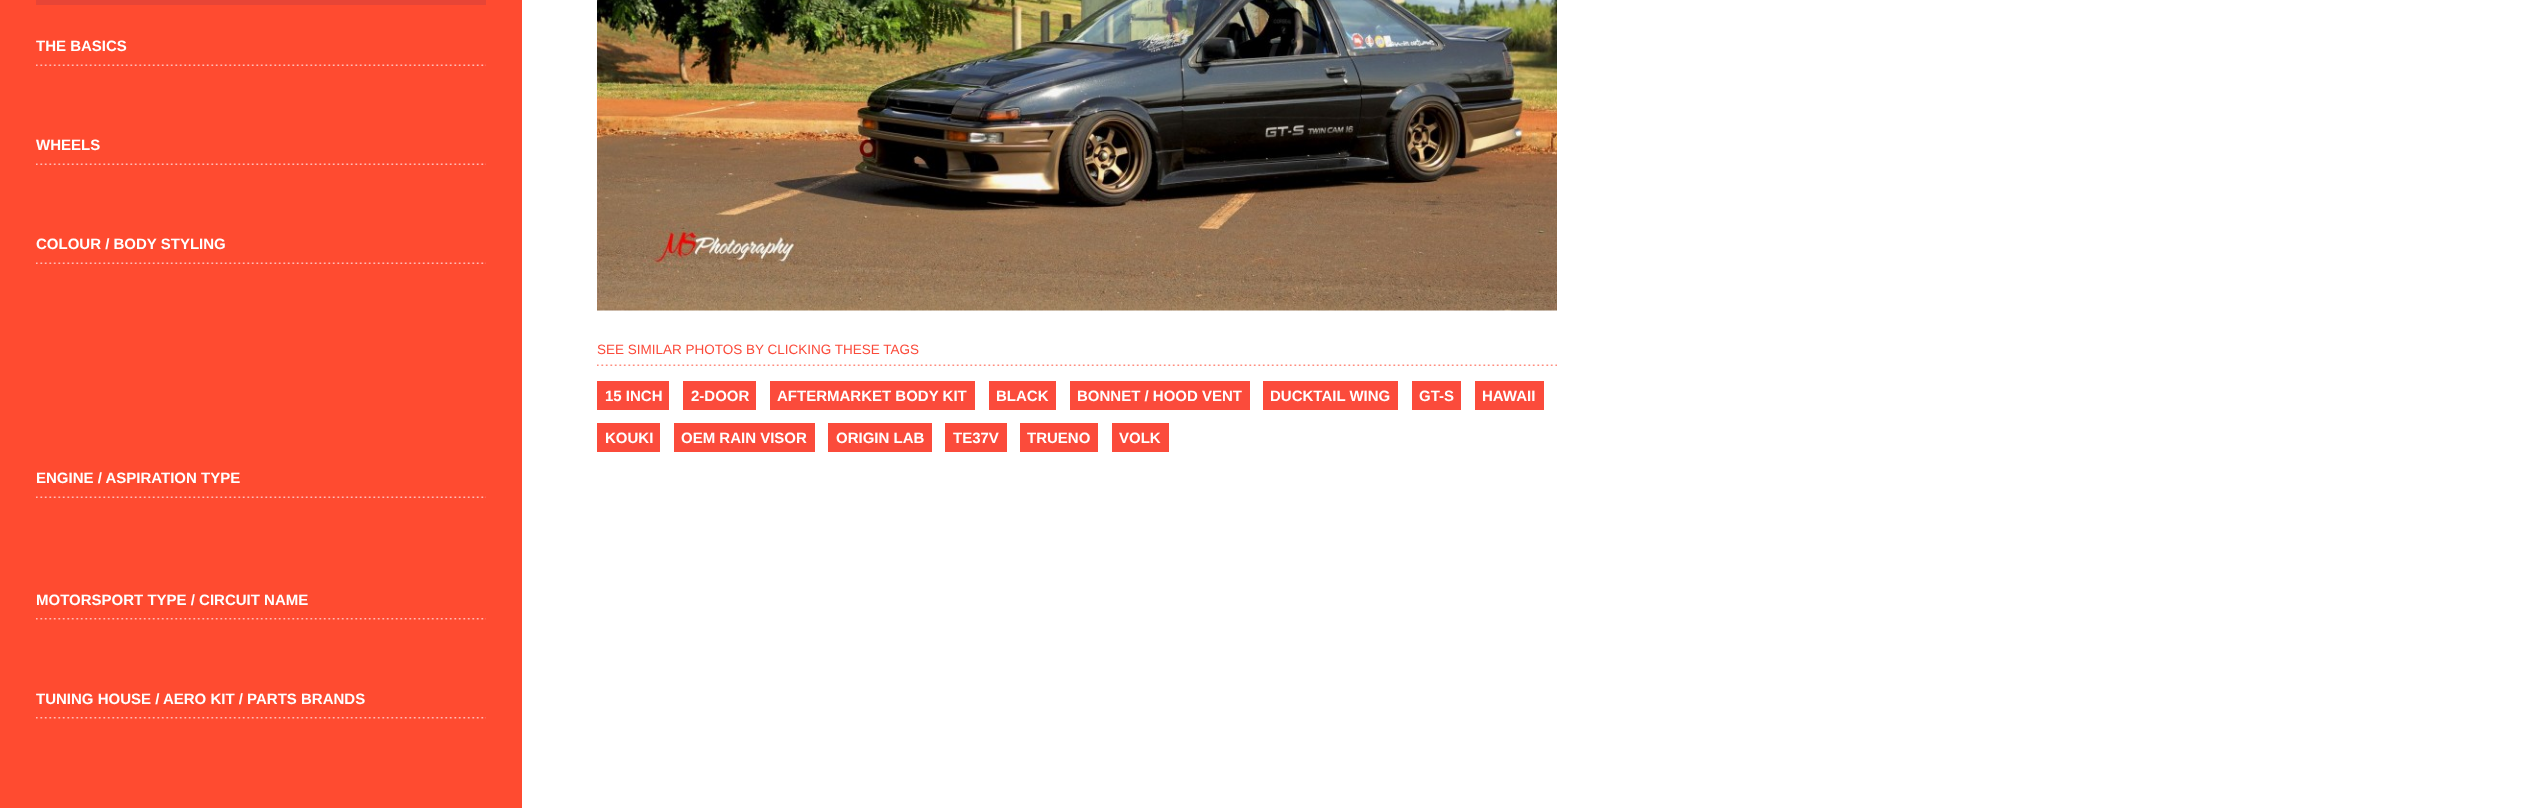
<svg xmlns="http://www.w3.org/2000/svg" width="2543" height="808">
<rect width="100%" height="100%" fill="#fff"/>
<rect width="522" height="808" fill="#ff4b30"/>
<rect x="36" width="450" height="5" fill="#e74536"/>
<text x="36" y="51" style="font-family:Liberation Sans;font-size:15px;font-weight:bold;fill:#fff">THE BASICS</text>
<image x="36" y="64" width="450" height="2" href="media/1.png"/>
<text x="36" y="150" style="font-family:Liberation Sans;font-size:15px;font-weight:bold;fill:#fff">WHEELS</text>
<image x="36" y="163" width="450" height="2" href="media/2.png"/>
<text x="36" y="249" style="font-family:Liberation Sans;font-size:15px;font-weight:bold;fill:#fff">COLOUR / BODY STYLING</text>
<image x="36" y="262" width="450" height="2" href="media/2.png"/>
<text x="36" y="483" style="font-family:Liberation Sans;font-size:15px;font-weight:bold;fill:#fff">ENGINE / ASPIRATION TYPE</text>
<image x="36" y="496" width="450" height="2" href="media/2.png"/>
<text x="36" y="605" style="font-family:Liberation Sans;font-size:15px;font-weight:bold;fill:#fff">MOTORSPORT TYPE / CIRCUIT NAME</text>
<image x="36" y="618" width="450" height="2" href="media/3.png"/>
<text x="36" y="704" style="font-family:Liberation Sans;font-size:15px;font-weight:bold;fill:#fff">TUNING HOUSE / AERO KIT / PARTS BRANDS</text>
<image x="36" y="717" width="450" height="2" href="media/3.png"/>
<image x="597" y="0" width="960" height="311" href="media/4.png"/>
<text x="597" y="354" style="font-family:Liberation Sans;font-size:13.5px;fill:#fb4b3b">SEE SIMILAR PHOTOS BY CLICKING THESE TAGS</text>
<image x="597" y="364" width="960" height="2" href="media/5.png"/>
<rect x="597" y="381" width="72" height="29" fill="#fb4b3b"/>
<text x="605" y="401" style="font-family:Liberation Sans;font-size:15px;font-weight:bold;fill:#fff">15 INCH</text>
<rect x="683" y="381" width="73" height="29" fill="#fb4b3b"/>
<text x="691" y="401" style="font-family:Liberation Sans;font-size:15px;font-weight:bold;fill:#fff">2-DOOR</text>
<rect x="770" y="381" width="205" height="29" fill="#fb4b3b"/>
<text x="777" y="401" style="font-family:Liberation Sans;font-size:15px;font-weight:bold;fill:#fff">AFTERMARKET BODY KIT</text>
<rect x="989" y="381" width="67" height="29" fill="#fb4b3b"/>
<text x="996" y="401" style="font-family:Liberation Sans;font-size:15px;font-weight:bold;fill:#fff">BLACK</text>
<rect x="1070" y="381" width="180" height="29" fill="#fb4b3b"/>
<text x="1077" y="401" style="font-family:Liberation Sans;font-size:15px;font-weight:bold;fill:#fff">BONNET / HOOD VENT</text>
<rect x="1263" y="381" width="135" height="29" fill="#fb4b3b"/>
<text x="1270" y="401" style="font-family:Liberation Sans;font-size:15px;font-weight:bold;fill:#fff">DUCKTAIL WING</text>
<rect x="1412" y="381" width="49" height="29" fill="#fb4b3b"/>
<text x="1419" y="401" style="font-family:Liberation Sans;font-size:15px;font-weight:bold;fill:#fff">GT-S</text>
<rect x="1475" y="381" width="69" height="29" fill="#fb4b3b"/>
<text x="1482" y="401" style="font-family:Liberation Sans;font-size:15px;font-weight:bold;fill:#fff">HAWAII</text>
<rect x="597" y="423" width="63" height="29" fill="#fb4b3b"/>
<text x="605" y="443" style="font-family:Liberation Sans;font-size:15px;font-weight:bold;fill:#fff">KOUKI</text>
<rect x="674" y="423" width="141" height="29" fill="#fb4b3b"/>
<text x="681" y="443" style="font-family:Liberation Sans;font-size:15px;font-weight:bold;fill:#fff">OEM RAIN VISOR</text>
<rect x="828" y="423" width="104" height="29" fill="#fb4b3b"/>
<text x="836" y="443" style="font-family:Liberation Sans;font-size:15px;font-weight:bold;fill:#fff">ORIGIN LAB</text>
<rect x="945" y="423" width="62" height="29" fill="#fb4b3b"/>
<text x="953" y="443" style="font-family:Liberation Sans;font-size:15px;font-weight:bold;fill:#fff">TE37V</text>
<rect x="1020" y="423" width="78" height="29" fill="#fb4b3b"/>
<text x="1027" y="443" style="font-family:Liberation Sans;font-size:15px;font-weight:bold;fill:#fff">TRUENO</text>
<rect x="1112" y="423" width="57" height="29" fill="#fb4b3b"/>
<text x="1119" y="443" style="font-family:Liberation Sans;font-size:15px;font-weight:bold;fill:#fff">VOLK</text>
</svg>
